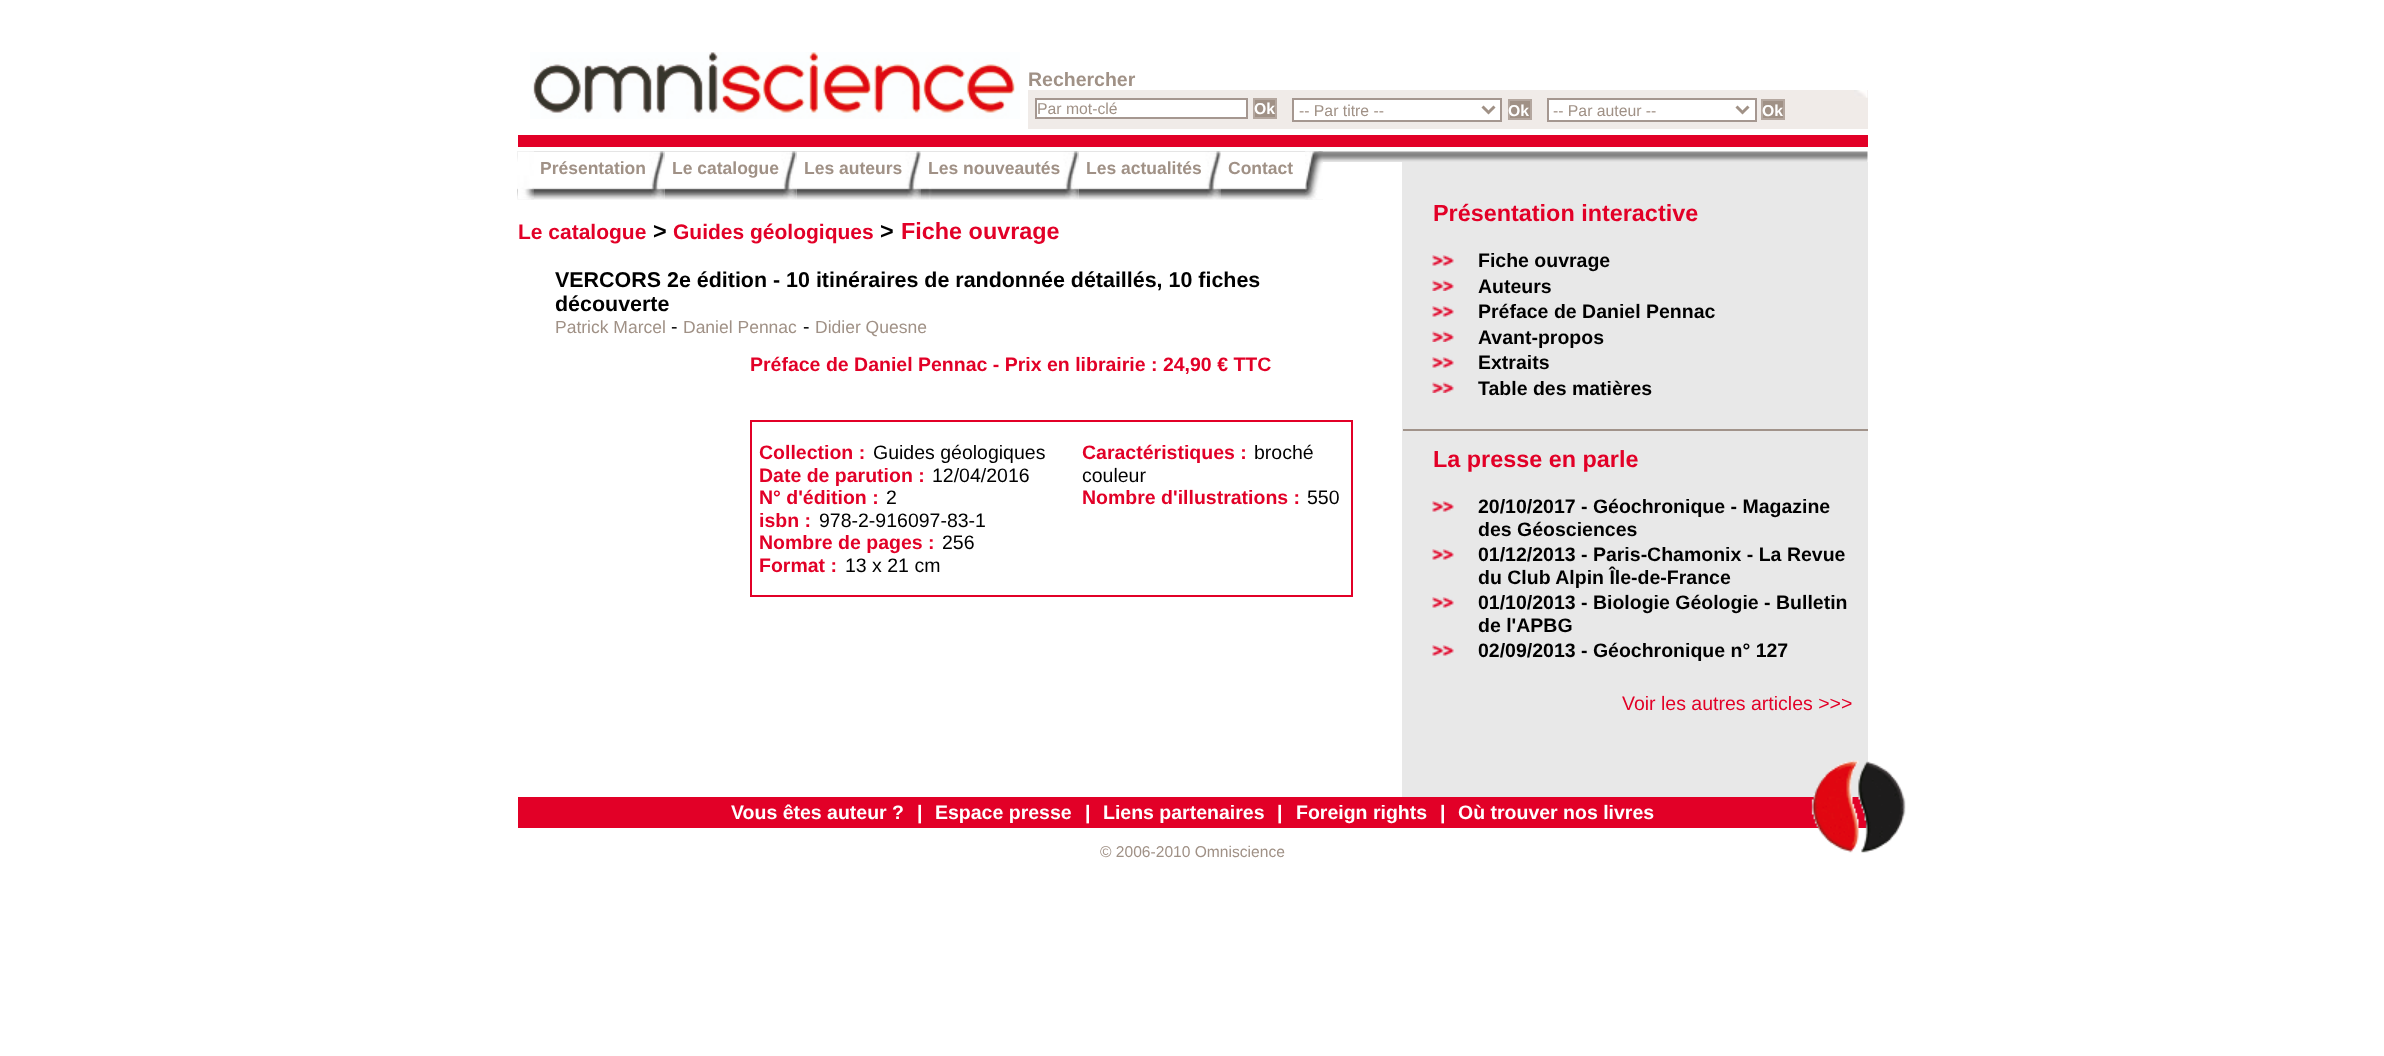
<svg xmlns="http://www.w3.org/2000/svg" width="2384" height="1056">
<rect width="100%" height="100%" fill="#fff"/>
<image x="530" y="52" width="490" height="67" href="media/1.png"/>
<text x="1028" y="86" style="font-family:Liberation Sans;font-size:19.5px;font-weight:bold;fill:#a09186">Rechercher</text>
<rect x="1028" y="90" width="840" height="39" fill="#f0ebe8"/>
<image x="1854" y="90" width="14" height="8" href="media/2.png"/>
<rect x="1036" y="99" width="211" height="19" fill="#fff" stroke="#a59790" stroke-width="2"/>
<text x="1037" y="114" style="font-family:Liberation Sans;font-size:15.75px;fill:#a09186">Par mot-clé</text>
<rect x="1254" y="99" width="22" height="19" fill="#a09186" stroke="#b4a79f" stroke-width="2"/>
<text x="1254" y="114" style="font-family:Liberation Sans;font-size:15.75px;font-weight:bold;fill:#fff">Ok</text>
<rect x="1293" y="99" width="208" height="22" fill="#fff" stroke="#a59790" stroke-width="2"/>
<path d="M1482.5 106.5l6 6l6-6" fill="none" stroke="#a09186" stroke-width="3"/>
<text x="1299" y="116" style="font-family:Liberation Sans;font-size:15.75px;fill:#a09186">-- Par titre --</text>
<rect x="1509" y="100" width="22" height="19" fill="#a09186" stroke="#b4a79f" stroke-width="2"/>
<text x="1508" y="116" style="font-family:Liberation Sans;font-size:15.75px;font-weight:bold;fill:#fff">Ok</text>
<rect x="1548" y="99" width="208" height="22" fill="#fff" stroke="#a59790" stroke-width="2"/>
<path d="M1736.5 106.5l6 6l6-6" fill="none" stroke="#a09186" stroke-width="3"/>
<text x="1553" y="116" style="font-family:Liberation Sans;font-size:15.75px;fill:#a09186">-- Par auteur --</text>
<rect x="1762" y="100" width="22" height="19" fill="#a09186" stroke="#b4a79f" stroke-width="2"/>
<text x="1762" y="116" style="font-family:Liberation Sans;font-size:15.75px;font-weight:bold;fill:#fff">Ok</text>
<rect x="518" y="135" width="1350" height="12" fill="#e20027"/>
<image x="517" y="151" width="1351" height="11" href="media/3.png"/>
<image x="517" y="151" width="148" height="49" href="media/4.png"/>
<image x="517" y="151" width="17" height="49" href="media/5.png"/>
<text x="540" y="174" style="font-family:Liberation Sans;font-size:17.5px;font-weight:bold;fill:#a09186">Présentation</text>
<image x="664" y="151" width="133" height="49" href="media/6.png"/>
<text x="672" y="174" style="font-family:Liberation Sans;font-size:17.5px;font-weight:bold;fill:#a09186">Le catalogue</text>
<image x="796" y="151" width="125" height="49" href="media/7.png"/>
<text x="804" y="174" style="font-family:Liberation Sans;font-size:17.5px;font-weight:bold;fill:#a09186">Les auteurs</text>
<image x="921" y="151" width="158" height="49" href="media/8.png"/>
<text x="928" y="174" style="font-family:Liberation Sans;font-size:17.5px;font-weight:bold;fill:#a09186">Les nouveautés</text>
<image x="1078" y="151" width="143" height="49" href="media/9.png"/>
<text x="1086" y="174" style="font-family:Liberation Sans;font-size:17.5px;font-weight:bold;fill:#a09186">Les actualités</text>
<image x="1221" y="151" width="102" height="49" href="media/10.png"/>
<image x="1305" y="151" width="18" height="49" href="media/11.png"/>
<text x="1228" y="174" style="font-family:Liberation Sans;font-size:17.5px;font-weight:bold;fill:#a09186">Contact</text>
<rect x="1402" y="162" width="466" height="635" fill="#e8e8e8"/>
<text x="518" y="239" style="font-family:Liberation Sans;font-size:21px;font-weight:bold;fill:#e20027">Le catalogue</text>
<text x="653" y="239" style="font-family:Liberation Sans;font-size:23.4px;font-weight:bold;fill:#000">&gt;</text>
<text x="673" y="239" style="font-family:Liberation Sans;font-size:21px;font-weight:bold;fill:#e20027">Guides géologiques</text>
<text x="880" y="239" style="font-family:Liberation Sans;font-size:23.4px;font-weight:bold;fill:#000">&gt;</text>
<text x="901" y="239" style="font-family:Liberation Sans;font-size:23.4px;font-weight:bold;fill:#e20027">Fiche ouvrage</text>
<text x="555" y="287" style="font-family:Liberation Sans;font-size:21.45px;font-weight:bold;fill:#000">VERCORS 2e édition - 10 itinéraires de randonnée détaillés, 10 fiches</text>
<text x="555" y="311" style="font-family:Liberation Sans;font-size:21.45px;font-weight:bold;fill:#000">découverte</text>
<text x="555" y="333" style="font-family:Liberation Sans;font-size:17.5px;fill:#a09186">Patrick Marcel</text>
<text x="671" y="333" style="font-family:Liberation Sans;font-size:19.5px;fill:#000">-</text>
<text x="683" y="333" style="font-family:Liberation Sans;font-size:17.5px;fill:#a09186">Daniel Pennac</text>
<text x="803" y="333" style="font-family:Liberation Sans;font-size:19.5px;fill:#000">-</text>
<text x="815" y="333" style="font-family:Liberation Sans;font-size:17.5px;fill:#a09186">Didier Quesne</text>
<text x="750" y="371" style="font-family:Liberation Sans;font-size:19.5px;font-weight:bold;fill:#e20027">Préface de Daniel Pennac - Prix en librairie : 24,90 € TTC</text>
<rect x="751" y="421" width="601" height="175" fill="none" stroke="#e20027" stroke-width="2"/>
<text x="759" y="459" style="font-family:Liberation Sans;font-size:19.5px;font-weight:bold;fill:#e20027">Collection :</text>
<text x="873" y="459" style="font-family:Liberation Sans;font-size:19.5px;fill:#000">Guides géologiques</text>
<text x="759" y="482" style="font-family:Liberation Sans;font-size:19.5px;font-weight:bold;fill:#e20027">Date de parution :</text>
<text x="932" y="482" style="font-family:Liberation Sans;font-size:19.5px;fill:#000">12/04/2016</text>
<text x="759" y="504" style="font-family:Liberation Sans;font-size:19.5px;font-weight:bold;fill:#e20027">N° d'édition :</text>
<text x="886" y="504" style="font-family:Liberation Sans;font-size:19.5px;fill:#000">2</text>
<text x="759" y="527" style="font-family:Liberation Sans;font-size:19.5px;font-weight:bold;fill:#e20027">isbn :</text>
<text x="819" y="527" style="font-family:Liberation Sans;font-size:19.5px;fill:#000">978-2-916097-83-1</text>
<text x="759" y="549" style="font-family:Liberation Sans;font-size:19.5px;font-weight:bold;fill:#e20027">Nombre de pages :</text>
<text x="942" y="549" style="font-family:Liberation Sans;font-size:19.5px;fill:#000">256</text>
<text x="759" y="572" style="font-family:Liberation Sans;font-size:19.5px;font-weight:bold;fill:#e20027">Format :</text>
<text x="845" y="572" style="font-family:Liberation Sans;font-size:19.5px;fill:#000">13 x 21 cm</text>
<text x="1082" y="459" style="font-family:Liberation Sans;font-size:19.5px;font-weight:bold;fill:#e20027">Caractéristiques :</text>
<text x="1254" y="459" style="font-family:Liberation Sans;font-size:19.5px;fill:#000">broché</text>
<text x="1082" y="482" style="font-family:Liberation Sans;font-size:19.5px;fill:#000">couleur</text>
<text x="1082" y="504" style="font-family:Liberation Sans;font-size:19.5px;font-weight:bold;fill:#e20027">Nombre d'illustrations :</text>
<text x="1307" y="504" style="font-family:Liberation Sans;font-size:19.5px;fill:#000">550</text>
<text x="1433" y="221" style="font-family:Liberation Sans;font-size:23.4px;font-weight:bold;fill:#e20027">Présentation interactive</text>
<image x="1432" y="255" width="22" height="11" href="media/12.png"/>
<text x="1478" y="267" style="font-family:Liberation Sans;font-size:19.5px;font-weight:bold;fill:#000">Fiche ouvrage</text>
<image x="1432" y="280" width="22" height="11" href="media/13.png"/>
<text x="1478" y="293" style="font-family:Liberation Sans;font-size:19.5px;font-weight:bold;fill:#000">Auteurs</text>
<image x="1432" y="306" width="22" height="11" href="media/12.png"/>
<text x="1478" y="318" style="font-family:Liberation Sans;font-size:19.5px;font-weight:bold;fill:#000">Préface de Daniel Pennac</text>
<image x="1432" y="331" width="22" height="11" href="media/13.png"/>
<text x="1478" y="344" style="font-family:Liberation Sans;font-size:19.5px;font-weight:bold;fill:#000">Avant-propos</text>
<image x="1432" y="357" width="22" height="11" href="media/12.png"/>
<text x="1478" y="369" style="font-family:Liberation Sans;font-size:19.5px;font-weight:bold;fill:#000">Extraits</text>
<image x="1432" y="382" width="22" height="11" href="media/13.png"/>
<text x="1478" y="395" style="font-family:Liberation Sans;font-size:19.5px;font-weight:bold;fill:#000">Table des matières</text>
<rect x="1403" y="429" width="465" height="2" fill="#a1938a"/>
<text x="1433" y="467" style="font-family:Liberation Sans;font-size:23.4px;font-weight:bold;fill:#e20027">La presse en parle</text>
<image x="1432" y="501" width="22" height="11" href="media/12.png"/>
<text x="1478" y="513" style="font-family:Liberation Sans;font-size:19.5px;font-weight:bold;fill:#000">20/10/2017 - Géochronique - Magazine</text>
<text x="1478" y="536" style="font-family:Liberation Sans;font-size:19.5px;font-weight:bold;fill:#000">des Géosciences</text>
<image x="1432" y="549" width="22" height="11" href="media/12.png"/>
<text x="1478" y="561" style="font-family:Liberation Sans;font-size:19.5px;font-weight:bold;fill:#000">01/12/2013 - Paris-Chamonix - La Revue</text>
<text x="1478" y="584" style="font-family:Liberation Sans;font-size:19.5px;font-weight:bold;fill:#000">du Club Alpin Île-de-France</text>
<image x="1432" y="597" width="22" height="11" href="media/12.png"/>
<text x="1478" y="609" style="font-family:Liberation Sans;font-size:19.5px;font-weight:bold;fill:#000">01/10/2013 - Biologie Géologie - Bulletin</text>
<text x="1478" y="632" style="font-family:Liberation Sans;font-size:19.5px;font-weight:bold;fill:#000">de l'APBG</text>
<image x="1432" y="645" width="22" height="11" href="media/12.png"/>
<text x="1478" y="657" style="font-family:Liberation Sans;font-size:19.5px;font-weight:bold;fill:#000">02/09/2013 - Géochronique n° 127</text>
<text x="1622" y="710" style="font-family:Liberation Sans;font-size:19.5px;fill:#e20027">Voir les autres articles &gt;&gt;&gt;</text>
<rect x="518" y="797" width="1349" height="31" fill="#e20027"/>
<text x="731" y="819" style="font-family:Liberation Sans;font-size:19.5px;font-weight:bold;fill:#fff">Vous êtes auteur ?</text>
<text x="917" y="819" style="font-family:Liberation Sans;font-size:19.5px;font-weight:bold;fill:#fff">|</text>
<text x="935" y="819" style="font-family:Liberation Sans;font-size:19.5px;font-weight:bold;fill:#fff">Espace presse</text>
<text x="1085" y="819" style="font-family:Liberation Sans;font-size:19.5px;font-weight:bold;fill:#fff">|</text>
<text x="1103" y="819" style="font-family:Liberation Sans;font-size:19.5px;font-weight:bold;fill:#fff">Liens partenaires</text>
<text x="1277" y="819" style="font-family:Liberation Sans;font-size:19.5px;font-weight:bold;fill:#fff">|</text>
<text x="1296" y="819" style="font-family:Liberation Sans;font-size:19.5px;font-weight:bold;fill:#fff">Foreign rights</text>
<text x="1440" y="819" style="font-family:Liberation Sans;font-size:19.5px;font-weight:bold;fill:#fff">|</text>
<text x="1458" y="819" style="font-family:Liberation Sans;font-size:19.5px;font-weight:bold;fill:#fff">Où trouver nos livres</text>
<image x="1811" y="760" width="95" height="93" href="media/14.png"/>
<text x="1100" y="857" style="font-family:Liberation Sans;font-size:15.6px;fill:#a09186">© 2006-2010 Omniscience</text>
</svg>
